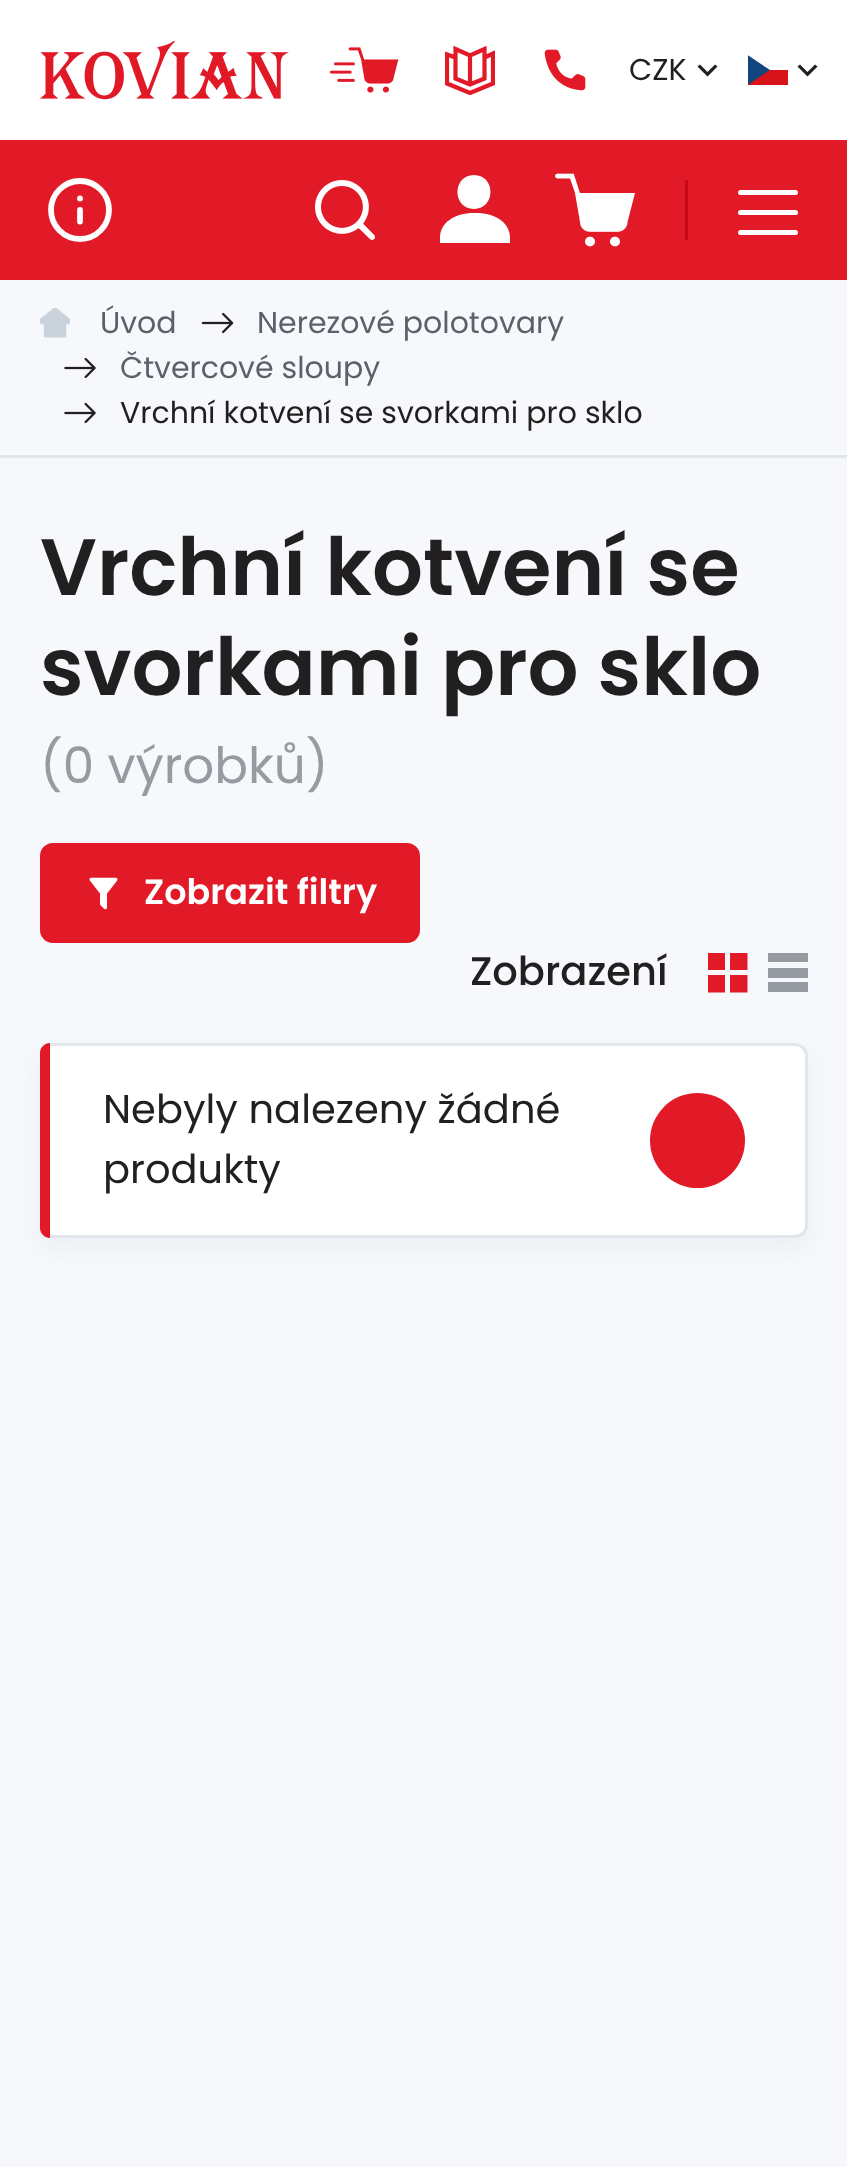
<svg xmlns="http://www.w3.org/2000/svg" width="847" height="2167">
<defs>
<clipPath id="clip1"><rect x="445" y="45" width="50" height="50"/></clipPath>
<clipPath id="clip2"><rect x="748" y="55" width="40" height="30"/></clipPath>
<clipPath id="clip3"><rect x="768" y="953" width="40" height="40"/></clipPath>
</defs>
<rect width="100%" height="100%" fill="#f6f8fb"/>
<rect width="847" height="140" fill="#fff"/>
<image x="40" y="40" width="249" height="60" href="media/1.png"/>
<image x="330" y="47" width="69" height="46" href="media/2.png"/>
<g clip-path="url(#clip1)">
<path d="M455.5 57.5l-8.5-3v29l23 9.5l23-9.5v-30l-8.5 4m-29 21v-29.5l14.5 6.5l14.5-6.5v29.5l-14.5 6zm14.5-23v29" fill="none" stroke="#e21927" stroke-width="4.2"/>
</g>
<image x="544" y="49" width="42" height="42" href="media/3.png"/>
<text x="629" y="80" style="font-family:Poppins;font-size:30px;fill:#211f20">CZK</text>
<path d="M700 64.5l7.5 7.5l7.5-7.5l2.5 2l-10 10l-10-10z" fill="#211f20"/>
<rect x="748" y="70" width="40" height="15" fill="#d7141a"/>
<g clip-path="url(#clip2)">
<path d="M770 70l-22.5-15v30z" fill="#11457e"/>
</g>
<path d="M800 64.5l7.5 7.5l7.5-7.5l2.5 2l-10 10l-10-10z" fill="#211f20"/>
<rect y="140" width="847" height="140" fill="#e21927"/>
<circle cx="80" cy="210" r="29" fill="none" stroke="#fff" stroke-width="5.8"/>
<path d="M80 221.5v-11.5m0-11.5h0" fill="none" stroke="#fff" stroke-width="5.8" stroke-linecap="round" stroke-linejoin="round"/>
<image x="315" y="180" width="60" height="60" href="media/4.png"/>
<path d="M474 209c22 0 22-34 0-34c-22 0-22 34 0 34zm0 4c-20 0-34 10-34 25v5h70v-5c0-15-14-25-34-25z" fill="#fff"/>
<image x="555" y="173" width="80" height="74" href="media/5.png"/>
<rect x="685" y="180" width="3" height="60" fill="#c50a17"/>
<rect x="738" y="190" width="60" height="5" rx="2.5" fill="#fff"/>
<rect x="738" y="210" width="60" height="5" rx="2.5" fill="#fff"/>
<rect x="738" y="230" width="60" height="5" rx="2.5" fill="#fff"/>
<rect y="455" width="847" height="3" fill="#e2e6ea"/>
<image x="40" y="308" width="30" height="30" href="media/6.png"/>
<text x="100" y="333" style="font-family:Poppins;font-size:30px;fill:#5c606b">Úvod</text>
<image x="201" y="312" width="33" height="22" href="media/7.png"/>
<text x="257" y="333" style="font-family:Poppins;font-size:30px;fill:#5c606b">Nerezové polotovary</text>
<image x="64" y="357" width="32" height="22" href="media/8.png"/>
<text x="120" y="378" style="font-family:Poppins;font-size:30px;fill:#5c606b">Čtvercové sloupy</text>
<image x="64" y="402" width="32" height="22" href="media/8.png"/>
<text x="120" y="423" style="font-family:Poppins;font-size:30px;fill:#211f20">Vrchní kotvení se svorkami pro sklo</text>
<text x="40" y="595" style="font-family:Poppins;font-size:80px;font-weight:600;fill:#211f20">Vrchní kotvení se</text>
<text x="40" y="695" style="font-family:Poppins;font-size:80px;font-weight:600;fill:#211f20">svorkami pro sklo</text>
<text x="40" y="783" style="font-family:Poppins;font-size:50px;fill:#959ba0">(0 výrobků)</text>
<rect x="41.5" y="844.5" width="377" height="97" rx="11.5" fill="#e21927" stroke="#e21927" stroke-width="3"/>
<image x="89" y="877" width="29" height="33" href="media/9.png"/>
<text x="144" y="904" style="font-family:Poppins;font-size:35px;font-weight:600;fill:#fff">Zobrazit filtry</text>
<text x="470" y="985" style="font-family:Poppins;font-size:40px;font-weight:500;fill:#211f20">Zobrazení</text>
<image x="708" y="953" width="40" height="40" href="media/10.png"/>
<g clip-path="url(#clip3)">
<path d="M768 952h40v10h-40zm0 16h40v10h-40zm0 14h40v10h-40z" fill="#959ba0"/>
</g>
<rect x="40" y="1053" width="768" height="195" rx="13" fill="#e1e6eb80" filter="blur(10px)"/>
<rect x="41.5" y="1044.5" width="765" height="192" rx="11.5" fill="#fff" stroke="#e2e6ea" stroke-width="3"/>
<path d="M50 1043v195c-5.5 0-10-4.5-10-10v-175c0-5.5 4.5-10 10-10z" fill="#e21927"/>
<text x="103" y="1123" style="font-family:Poppins;font-size:40px;fill:#211f20">Nebyly nalezeny žádné</text>
<text x="103" y="1183" style="font-family:Poppins;font-size:40px;fill:#211f20">produkty</text>
<circle cx="697.5" cy="1140.5" r="47.5" fill="#e21927"/>
</svg>
